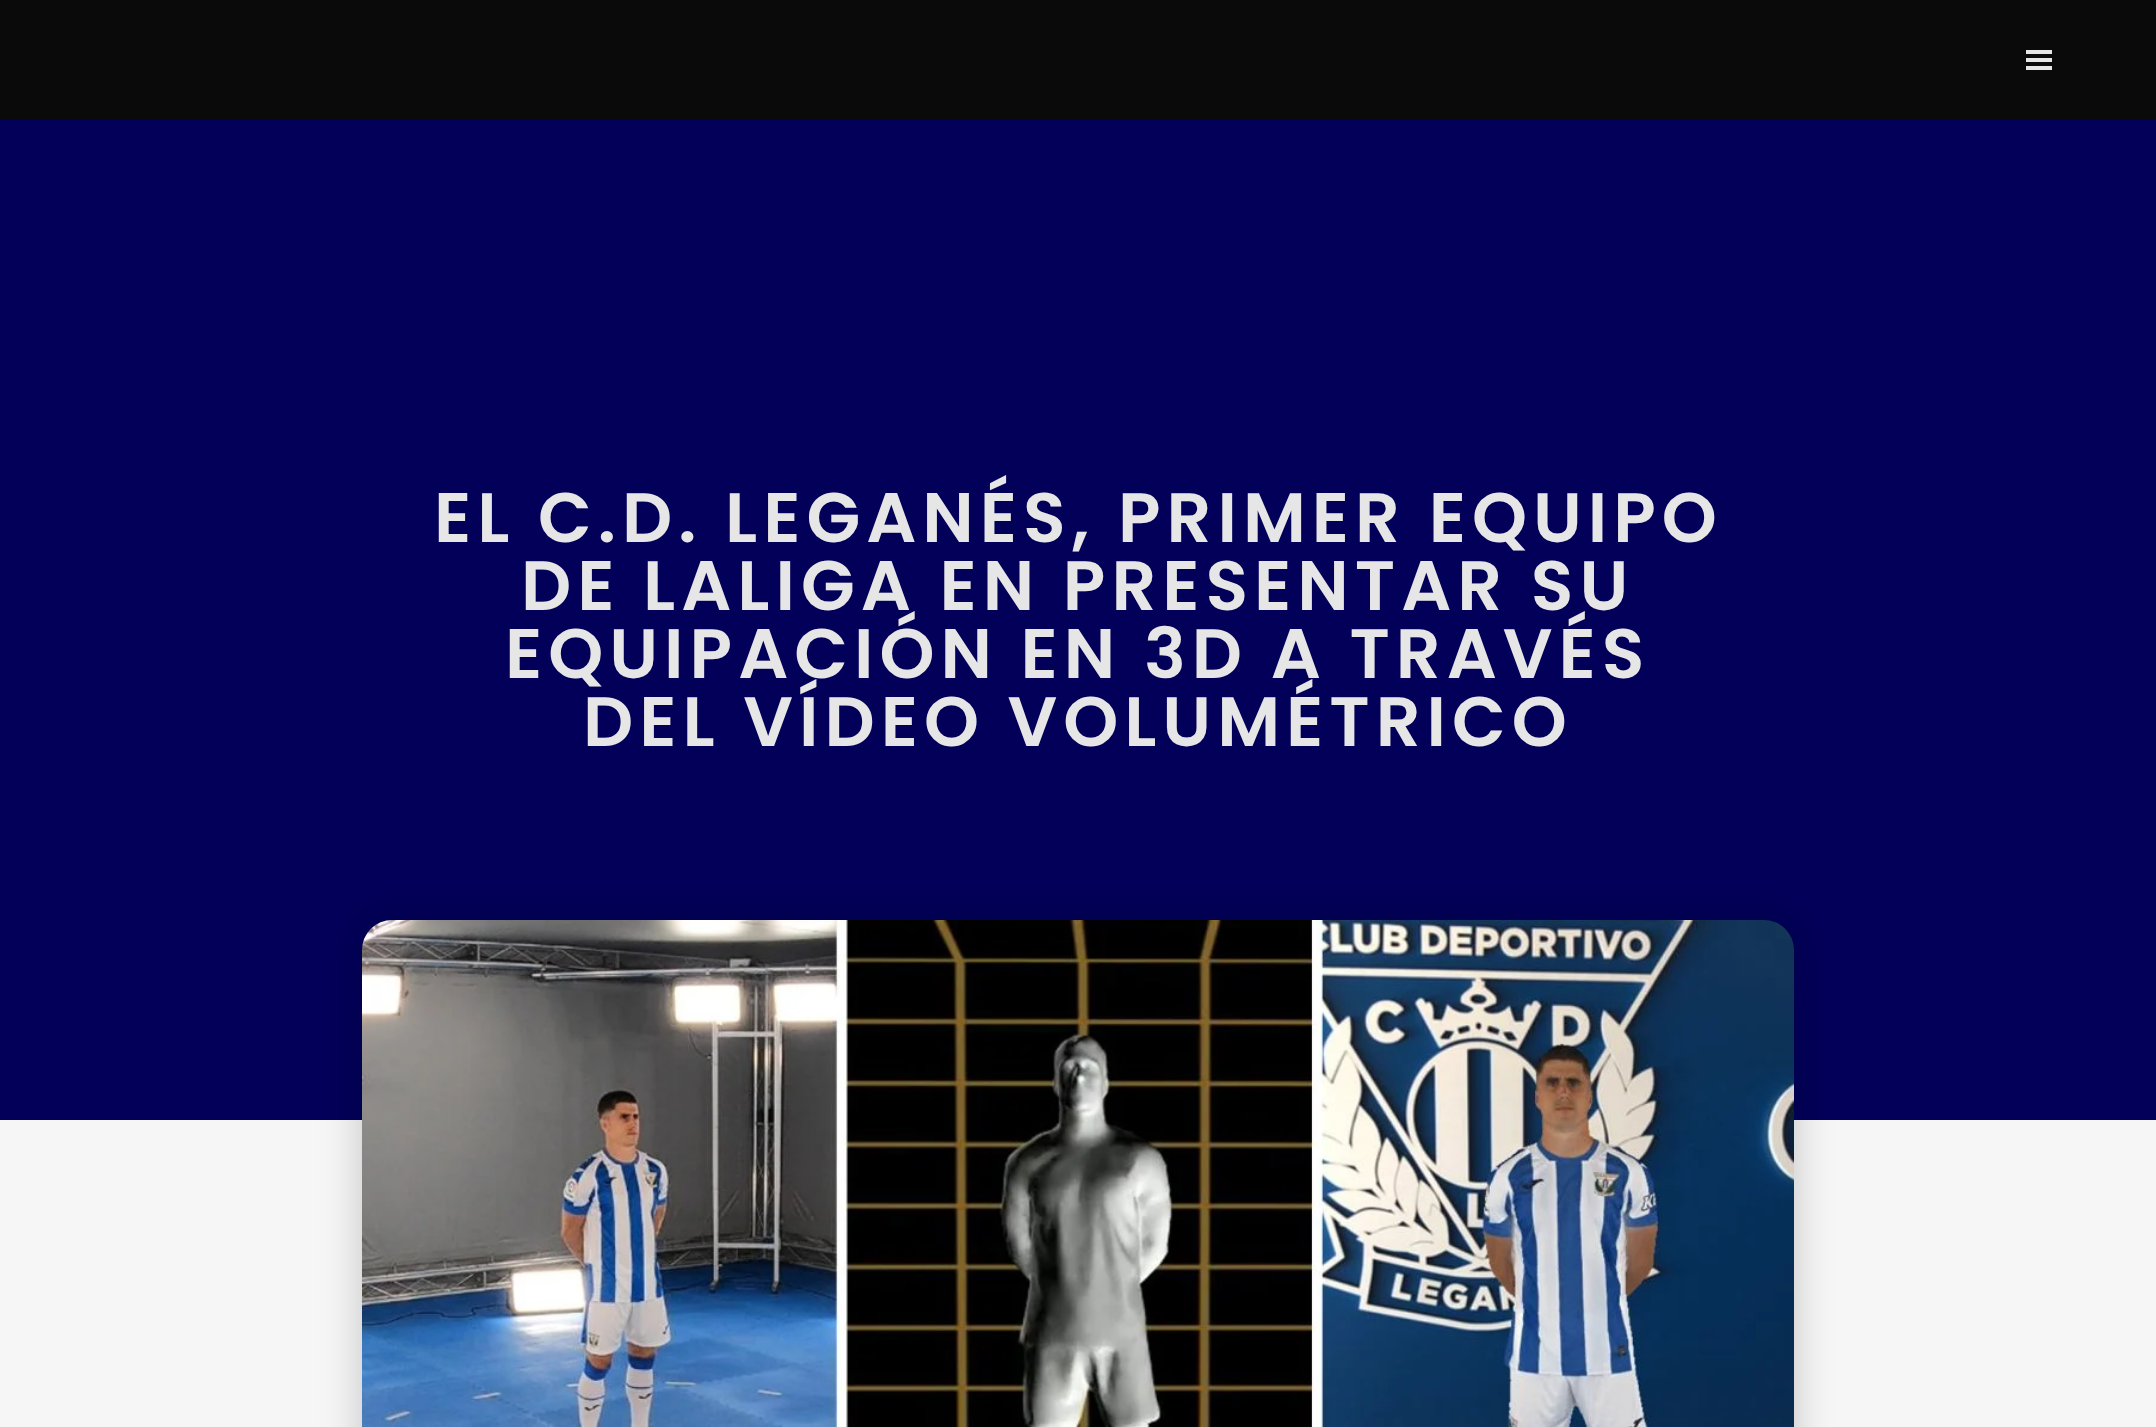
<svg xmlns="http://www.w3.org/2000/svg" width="2156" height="1427">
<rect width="100%" height="100%" fill="#f6f6f6"/>
<rect width="2156" height="120" fill="#0a0a0a"/>
<rect x="2026" y="58" width="26" height="4" fill="#e6e6e6"/>
<rect x="2026" y="50" width="26" height="4" fill="#e6e6e6"/>
<rect x="2026" y="66" width="26" height="4" fill="#e6e6e6"/>
<rect y="120" width="2156" height="1000" fill="#030059"/>
<text x="434" y="542" style="font-family:Poppins;font-size:70px;font-weight:600;letter-spacing:6px;fill:#e6e6e6">EL C.D. LEGANÉS, PRIMER EQUIPO</text>
<text x="521" y="610" style="font-family:Poppins;font-size:70px;font-weight:600;letter-spacing:6px;fill:#e6e6e6">DE LALIGA EN PRESENTAR SU</text>
<text x="505" y="678" style="font-family:Poppins;font-size:70px;font-weight:600;letter-spacing:6px;fill:#e6e6e6">EQUIPACIÓN EN 3D A TRAVÉS</text>
<text x="583" y="746" style="font-family:Poppins;font-size:70px;font-weight:600;letter-spacing:6px;fill:#e6e6e6">DEL VÍDEO VOLUMÉTRICO</text>
<rect x="362" y="920" width="1432" height="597" rx="30" fill="#00000033" filter="blur(20px)"/>
<image x="362" y="920" width="1432" height="507" href="media/1.png"/>
</svg>
